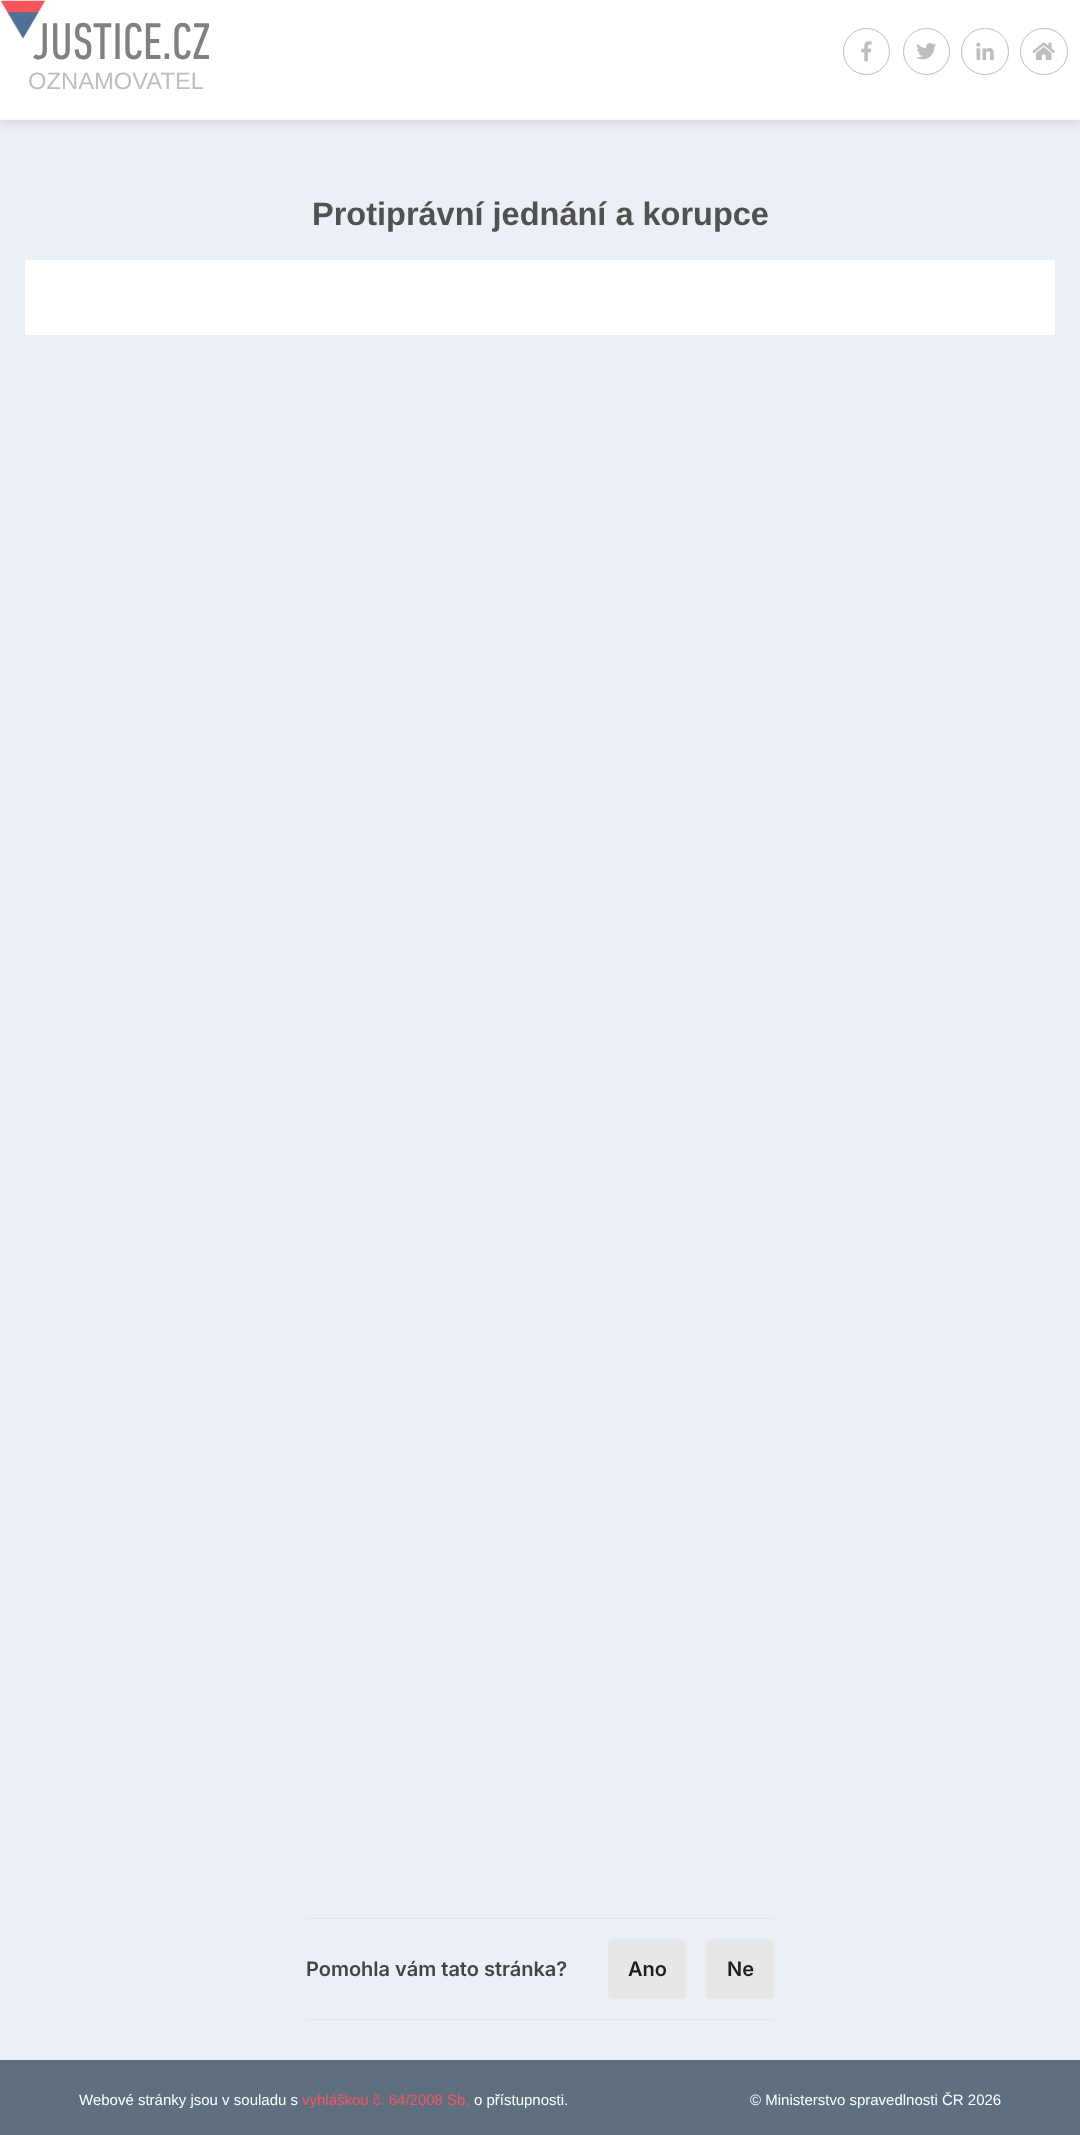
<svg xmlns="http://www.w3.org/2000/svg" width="1080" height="2135">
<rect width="100%" height="100%" fill="#eaf0f5"/>
<rect y="3" width="1080" height="120" fill="#0000001a" filter="blur(5px)"/>
<rect width="1080" height="119" fill="#fff"/>
<rect y="119" width="1080" height="1" fill="#f8f9fc"/>
<image x="0" y="0" width="45" height="39" href="media/1.png"/>
<text x="32" y="59" style="font-family:DIN Next;font-size:52.5px;fill:#808080">JUSTICE.CZ</text>
<text x="28" y="89" style="font-family:Liberation Sans;font-size:23.75px;fill:#bebebe">OZNAMOVATEL</text>
<circle cx="866.5" cy="51.5" r="23" fill="none" stroke="#bebebe"/>
<image x="861" y="41" width="11" height="21" href="media/2.png"/>
<circle cx="926.5" cy="51.5" r="23" fill="none" stroke="#bebebe"/>
<image x="916" y="43" width="20" height="17" href="media/3.png"/>
<rect x="961.5" y="28.5" width="47" height="46" rx="23" fill="none" stroke="#bebebe"/>
<image x="976" y="42" width="18" height="18" href="media/4.png"/>
<rect x="1020.5" y="28.5" width="47" height="46" rx="23" fill="none" stroke="#bebebe"/>
<image x="1032" y="42" width="23" height="18" href="media/5.png"/>
<text x="312" y="225" style="font-family:Liberation Sans;font-size:32.5px;font-weight:bold;fill:#515151">Protiprávní jednání a korupce</text>
<rect x="25" y="260" width="1030" height="75" fill="#fff"/>
<rect x="306" y="1918" width="468" height="1" fill="#e5e5e5"/>
<rect x="306" y="2019" width="468" height="1" fill="#e5e5e5"/>
<text x="306" y="1976" style="font-family:Inter;font-size:20px;font-weight:600;fill:#424447">Pomohla vám tato stránka?</text>
<rect x="608" y="1939" width="78" height="60" rx="5" fill="#e7e7e8"/>
<text x="628" y="1976" style="font-family:Inter;font-size:20px;font-weight:600;fill:#1e1e1f">Ano</text>
<rect x="706" y="1939" width="68" height="60" rx="5" fill="#e7e7e8"/>
<text x="727" y="1976" style="font-family:Inter;font-size:20px;font-weight:600;fill:#1e1e1f">Ne</text>
<rect y="2060" width="1080" height="75" fill="#5e6f7f"/>
<text x="79" y="2105" style="font-family:Liberation Sans;font-size:15px;fill:#fff">Webové stránky jsou v souladu s</text>
<text x="302" y="2105" style="font-family:Liberation Sans;font-size:15px;fill:#fe505d">vyhláškou č. 64/2008 Sb.</text>
<text x="474" y="2105" style="font-family:Liberation Sans;font-size:15px;fill:#fff">o přístupnosti.</text>
<text x="750" y="2105" style="font-family:Liberation Sans;font-size:15px;fill:#fff">© Ministerstvo spravedlnosti ČR 2026</text>
</svg>
